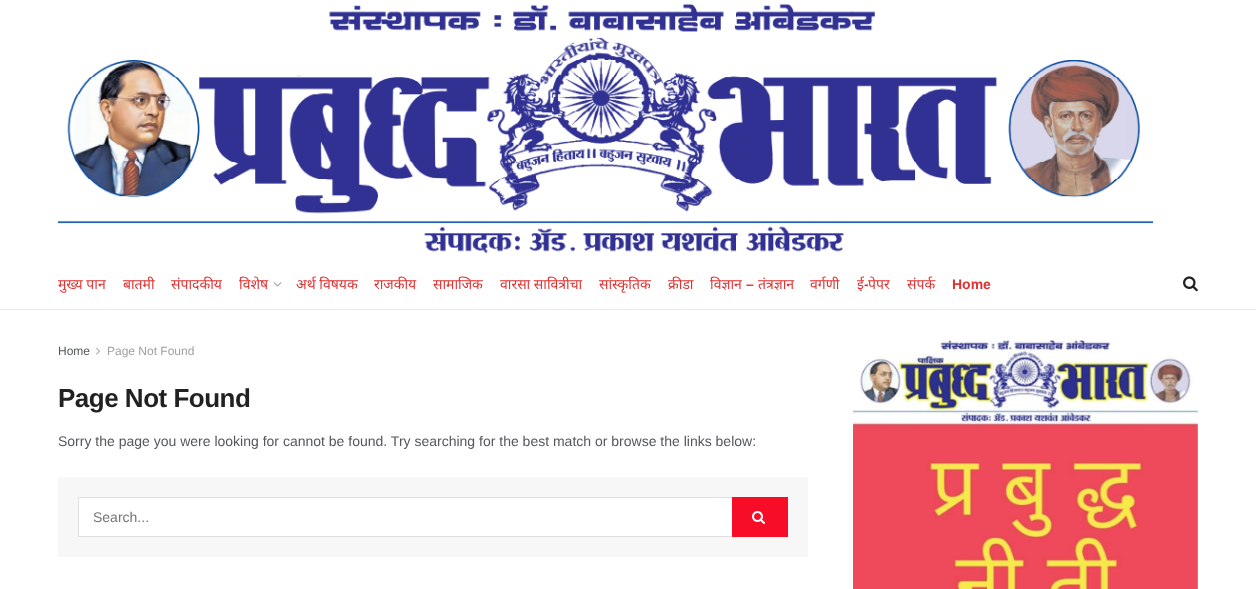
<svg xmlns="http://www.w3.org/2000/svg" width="1256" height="589">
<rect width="100%" height="100%" fill="#fff"/>
<image x="58" y="3" width="1095" height="251" href="media/1.png"/>
<rect y="309" width="1256" height="1" fill="#e8e8e8"/>
<text x="58" y="289" style="font-family:Noto Sans;font-size:14px;fill:#d33">मुख्य पान</text>
<text x="123" y="289" style="font-family:Noto Sans;font-size:14px;fill:#d33">बातमी</text>
<text x="171" y="289" style="font-family:Noto Sans;font-size:14px;fill:#d33">संपादकीय</text>
<text x="239" y="289" style="font-family:Noto Sans;font-size:14px;fill:#d33">विशेष</text>
<image x="273" y="282" width="9" height="5" href="media/2.png"/>
<text x="296" y="289" style="font-family:Noto Sans;font-size:14px;fill:#d33">अर्थ विषयक</text>
<text x="374" y="289" style="font-family:Noto Sans;font-size:14px;fill:#d33">राजकीय</text>
<text x="433" y="289" style="font-family:Noto Sans;font-size:14px;fill:#d33">सामाजिक</text>
<text x="500" y="289" style="font-family:Noto Sans;font-size:14px;fill:#d33">वारसा सावित्रीचा</text>
<text x="599" y="289" style="font-family:Noto Sans;font-size:14px;fill:#d33">सांस्कृतिक</text>
<text x="668" y="289" style="font-family:Noto Sans;font-size:14px;fill:#d33">क्रीडा</text>
<text x="710" y="289" style="font-family:Noto Sans;font-size:14px;fill:#d33">विज्ञान</text>
<text x="746" y="289" style="font-family:Liberation Sans;font-size:14px;font-weight:bold;fill:#d33">–</text>
<text x="758" y="289" style="font-family:Noto Sans;font-size:14px;fill:#d33">तंत्रज्ञान</text>
<text x="810" y="289" style="font-family:Noto Sans;font-size:14px;fill:#d33">वर्गणी</text>
<text x="857" y="289" style="font-family:Noto Sans;font-size:14px;fill:#d33">ई</text>
<text x="864" y="289" style="font-family:Liberation Sans;font-size:14px;font-weight:bold;fill:#d33">-</text>
<text x="868" y="289" style="font-family:Noto Sans;font-size:14px;fill:#d33">पेपर</text>
<text x="907" y="289" style="font-family:Noto Sans;font-size:14px;fill:#d33">संपर्क</text>
<text x="952" y="289" style="font-family:Liberation Sans;font-size:14px;font-weight:bold;fill:#d33">Home</text>
<image x="1183" y="276" width="15" height="16" href="media/3.png"/>
<text x="58" y="355" style="font-family:Liberation Sans;font-size:12px;fill:#53585c">Home</text>
<image x="96" y="347" width="4" height="8" href="media/4.png"/>
<text x="107" y="355" style="font-family:Liberation Sans;font-size:12px;fill:#a0a0a0">Page Not Found</text>
<text x="58" y="407" style="font-family:Liberation Sans;font-size:26px;font-weight:bold;letter-spacing:-0.5px;fill:#212121">Page Not Found</text>
<text x="58" y="446" style="font-family:Liberation Sans;font-size:14px;fill:#53585c">Sorry the page you were looking for cannot be found. Try searching for the best match or browse the links below:</text>
<rect x="58" y="477" width="750" height="80" fill="#f7f7f7"/>
<rect x="79" y="498" width="653" height="38" fill="#fff"/>
<rect x="78.5" y="497.5" width="709" height="39" fill="none" stroke="#e0e0e0"/>
<text x="93" y="522" style="font-family:Liberation Sans;font-size:14px;fill:#757575">Search...</text>
<rect x="732" y="497" width="56" height="40" fill="#f70d28"/>
<image x="752" y="511" width="13" height="13" href="media/5.png"/>
<image x="853" y="340" width="345" height="249" href="media/6.png"/>
</svg>
